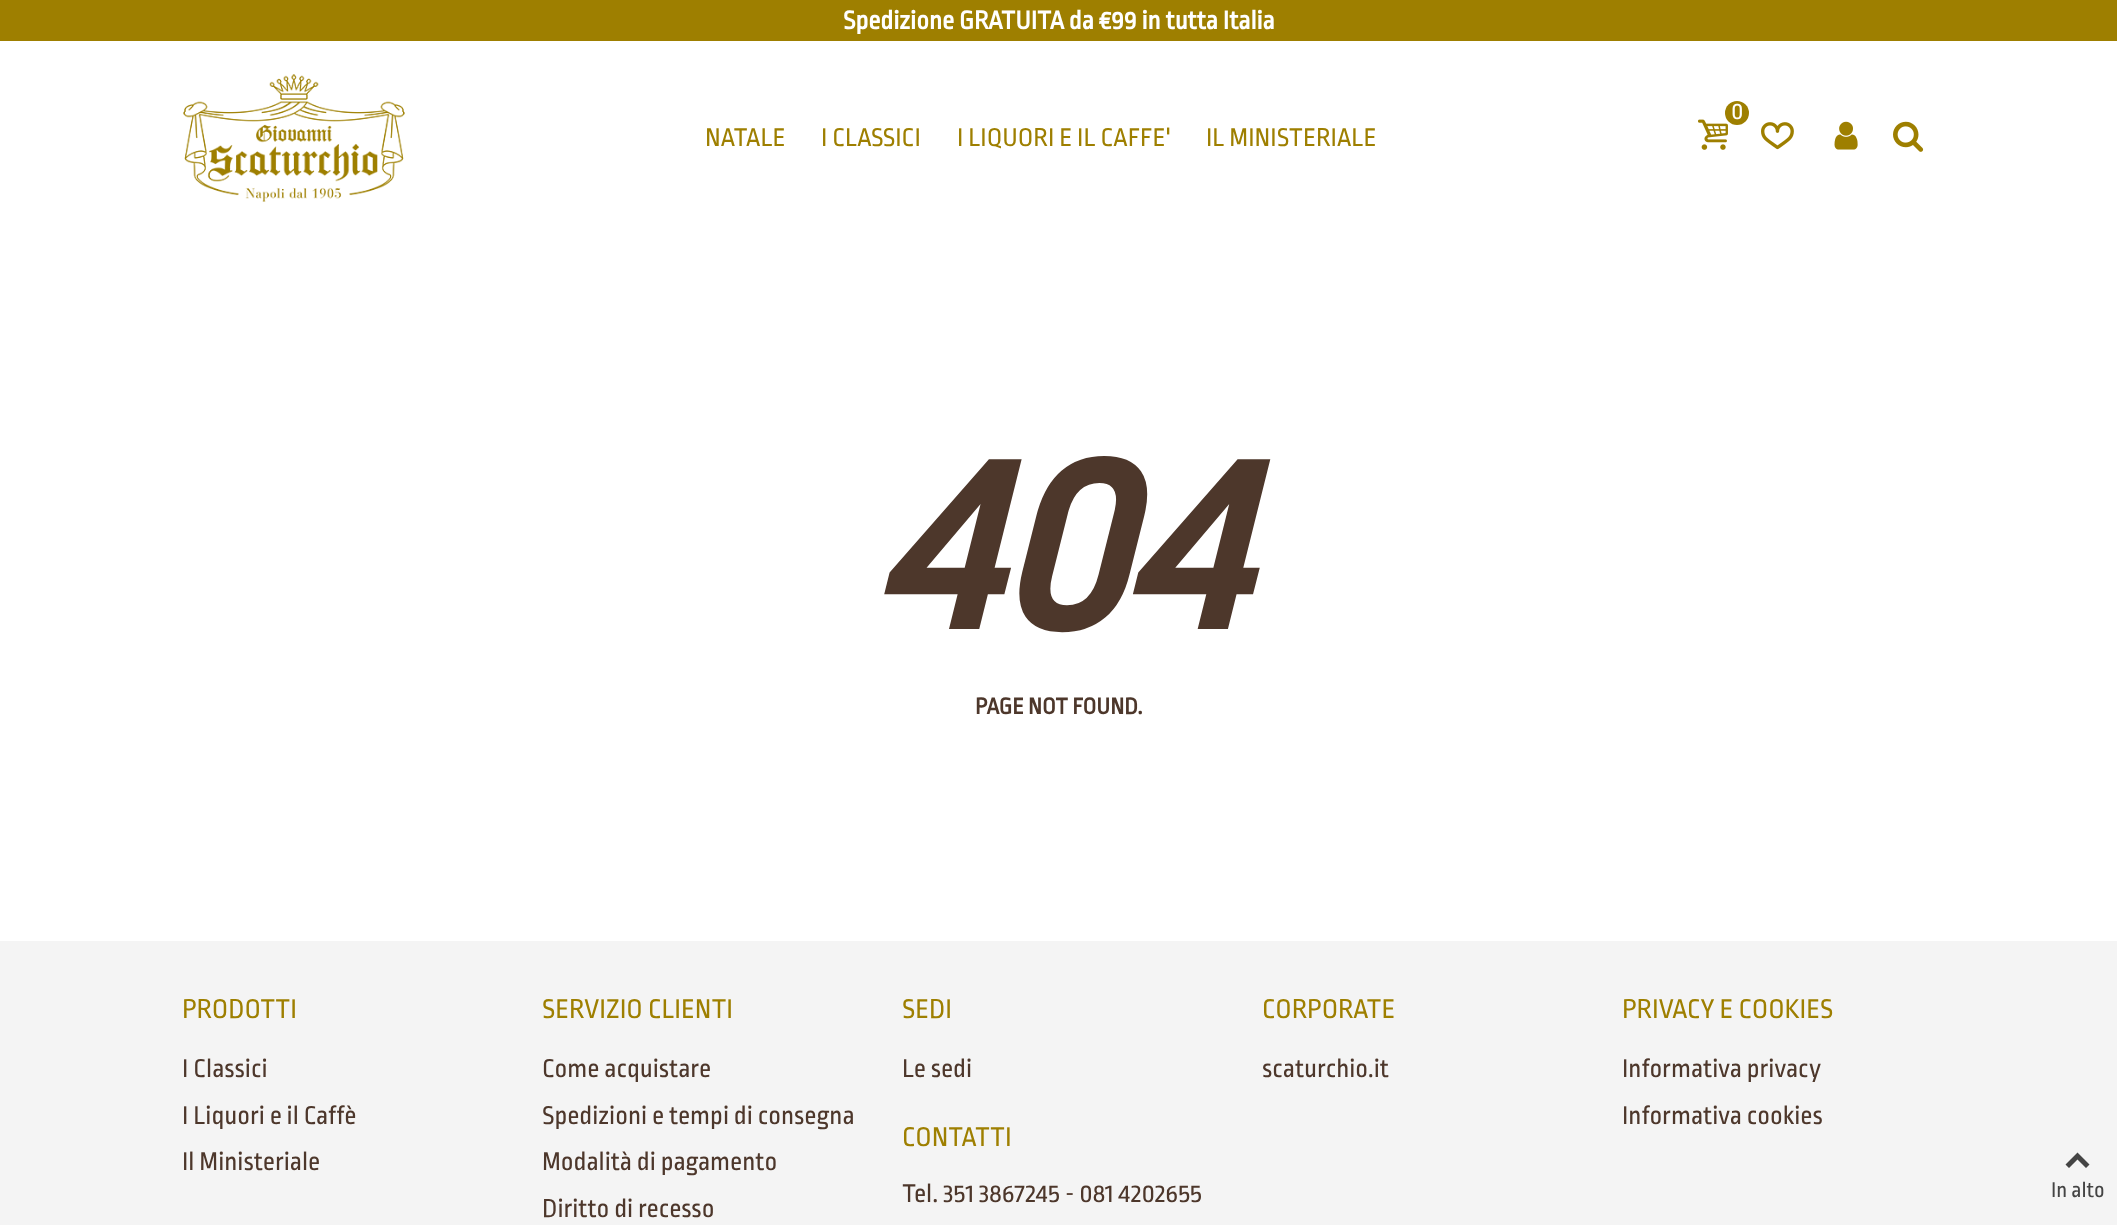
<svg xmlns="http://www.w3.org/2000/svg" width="2117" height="1225">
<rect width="100%" height="100%" fill="#fff"/>
<rect width="2117" height="41" fill="#9e7f00"/>
<text x="843" y="29" style="font-family:Ropa Sans;font-size:27px;font-weight:bold;fill:#fff">Spedizione GRATUITA da €99 in tutta Italia</text>
<image x="183" y="74" width="222" height="128" href="media/1.png"/>
<image x="1698" y="119" width="30" height="31" href="media/2.png"/>
<circle cx="1737" cy="113" r="12" fill="#9e7f00"/>
<text x="1731" y="119" style="font-family:Ropa Sans;font-size:25px;fill:#fff">0</text>
<image x="1761" y="122" width="33" height="28" href="media/3.png"/>
<image x="1834" y="121" width="24" height="29" href="media/4.png"/>
<image x="1893" y="121" width="31" height="31" href="media/5.png"/>
<text x="705" y="146" style="font-family:Ropa Sans;font-size:27px;fill:#9e7f00">NATALE</text>
<text x="821" y="146" style="font-family:Ropa Sans;font-size:27px;fill:#9e7f00">I CLASSICI</text>
<text x="957" y="146" style="font-family:Ropa Sans;font-size:27px;fill:#9e7f00">I LIQUORI E IL CAFFE'</text>
<text x="1206" y="146" style="font-family:Ropa Sans;font-size:27px;fill:#9e7f00">IL MINISTERIALE</text>
<text x="878" y="629" style="font-family:Ropa Sans;font-size:270px;font-weight:bold;font-style:italic;fill:#4d372b">404</text>
<text x="975" y="714" style="font-family:Ropa Sans;font-size:24px;font-weight:bold;fill:#4d372b">PAGE NOT FOUND.</text>
<rect y="941" width="2117" height="284" fill="#f4f4f4"/>
<text x="182" y="1018" style="font-family:Ropa Sans;font-size:28.5px;fill:#9e7f00">PRODOTTI</text>
<text x="182" y="1077" style="font-family:Ropa Sans;font-size:27px;fill:#4d372b">I Classici</text>
<text x="182" y="1124" style="font-family:Ropa Sans;font-size:27px;fill:#4d372b">I Liquori e il Caffè</text>
<text x="182" y="1170" style="font-family:Ropa Sans;font-size:27px;fill:#4d372b">Il Ministeriale</text>
<text x="542" y="1018" style="font-family:Ropa Sans;font-size:28.5px;fill:#9e7f00">SERVIZIO CLIENTI</text>
<text x="542" y="1077" style="font-family:Ropa Sans;font-size:27px;fill:#4d372b">Come acquistare</text>
<text x="542" y="1124" style="font-family:Ropa Sans;font-size:27px;fill:#4d372b">Spedizioni e tempi di consegna</text>
<text x="542" y="1170" style="font-family:Ropa Sans;font-size:27px;fill:#4d372b">Modalità di pagamento</text>
<text x="542" y="1217" style="font-family:Ropa Sans;font-size:27px;fill:#4d372b">Diritto di recesso</text>
<text x="902" y="1018" style="font-family:Ropa Sans;font-size:28.5px;fill:#9e7f00">SEDI</text>
<text x="902" y="1077" style="font-family:Ropa Sans;font-size:27px;fill:#4d372b">Le sedi</text>
<text x="902" y="1146" style="font-family:Ropa Sans;font-size:28.5px;fill:#9e7f00">CONTATTI</text>
<text x="902" y="1202" style="font-family:Ropa Sans;font-size:27px;fill:#4d372b">Tel. 351 3867245 - 081 4202655</text>
<text x="1262" y="1018" style="font-family:Ropa Sans;font-size:28.5px;fill:#9e7f00">CORPORATE</text>
<text x="1262" y="1077" style="font-family:Ropa Sans;font-size:27px;fill:#4d372b">scaturchio.it</text>
<text x="1622" y="1018" style="font-family:Ropa Sans;font-size:28.5px;fill:#9e7f00">PRIVACY E COOKIES</text>
<text x="1622" y="1077" style="font-family:Ropa Sans;font-size:27px;fill:#4d372b">Informativa privacy</text>
<text x="1622" y="1124" style="font-family:Ropa Sans;font-size:27px;fill:#4d372b">Informativa cookies</text>
<path d="M2065.5 1164.5l12-12l12 12l-3.5 3.5l-8.5-8.5l-8.5 8.5z" fill="#444"/>
<text x="2051" y="1197" style="font-family:Ropa Sans;font-size:22.5px;fill:#444">In alto</text>
</svg>
